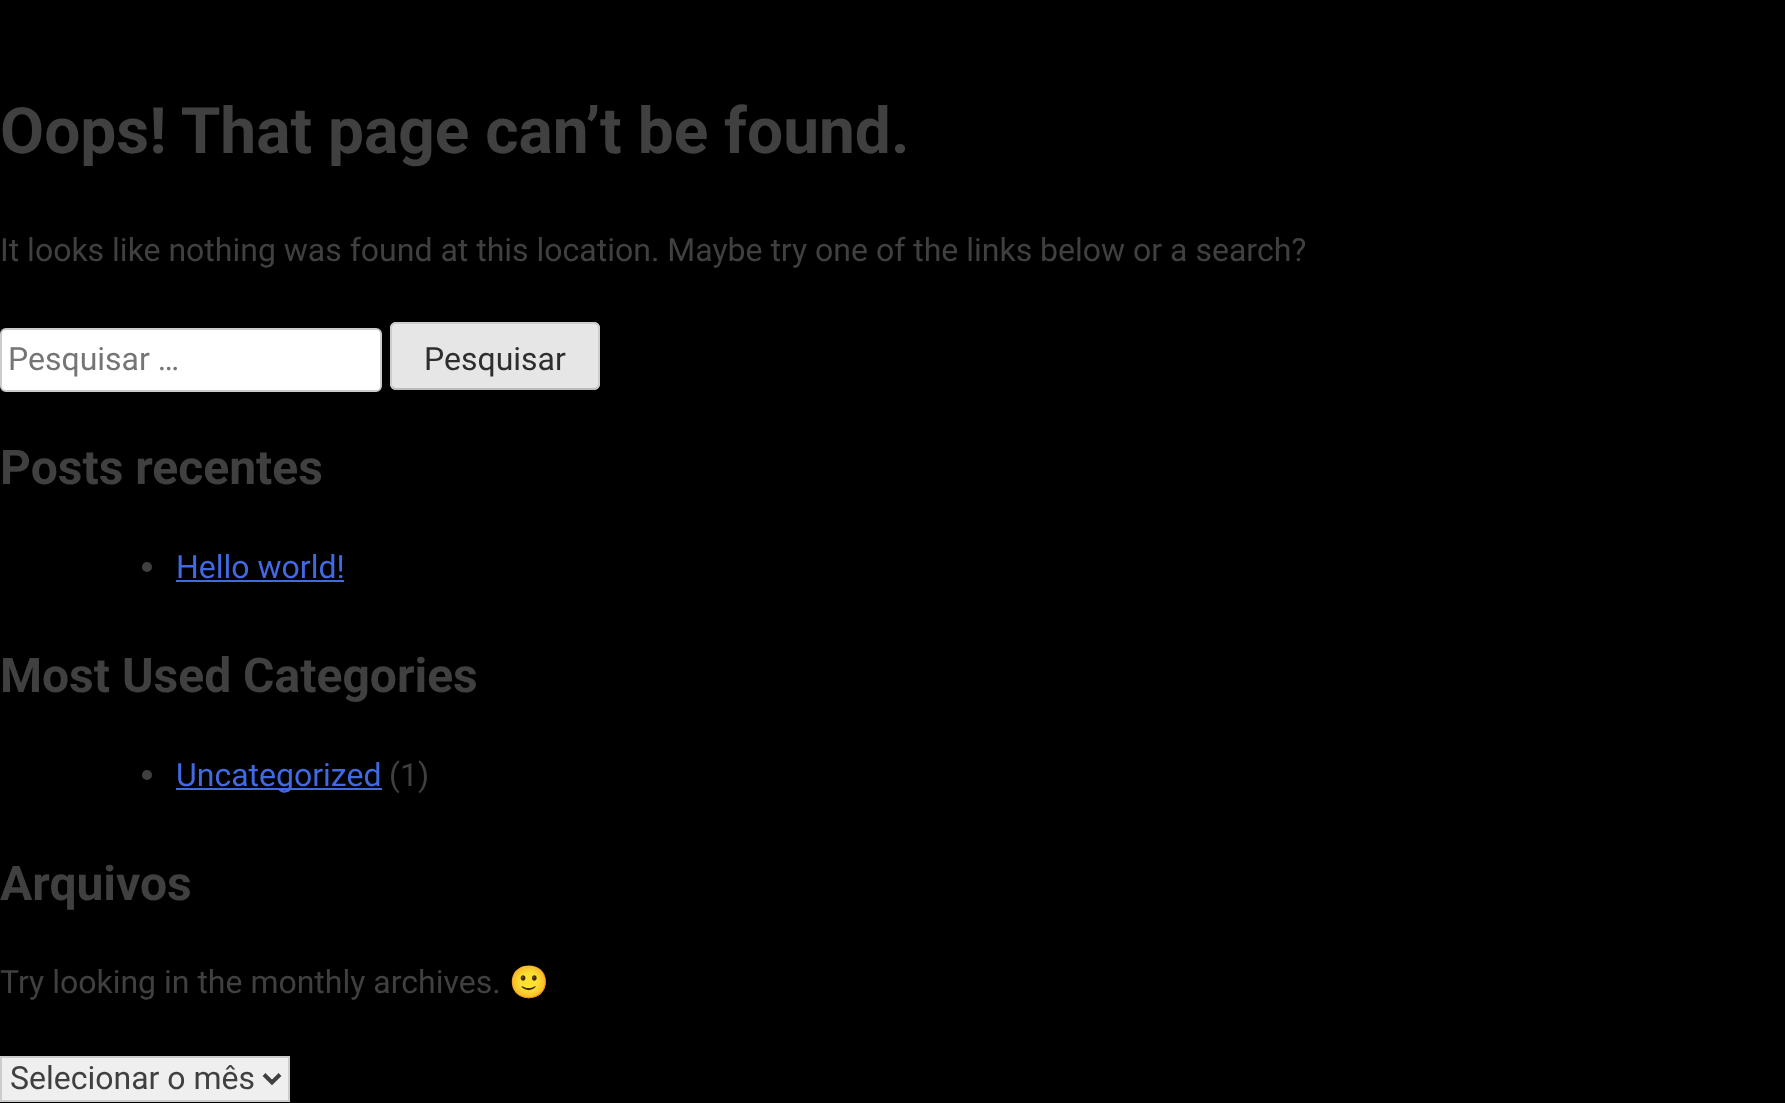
<svg xmlns="http://www.w3.org/2000/svg" width="1785" height="1103">
<rect width="100%" height="100%" fill="#000"/>
<text x="0" y="153" style="font-family:Roboto;font-size:64px;font-weight:bold;fill:#404040">Oops! That page can’t be found.</text>
<text x="0" y="261" style="font-family:Roboto;font-size:32px;fill:#404040">It looks like nothing was found at this location. Maybe try one of the links below or a search?</text>
<rect x="1" y="329" width="380" height="62" rx="5" fill="#fff" stroke="#ccc" stroke-width="2"/>
<text x="8" y="370" style="font-family:Roboto;font-size:32px;fill:#757575">Pesquisar …</text>
<rect x="390" y="322" width="210" height="68" rx="6" fill="#e6e6e6"/>
<path d="M597.5 387.5c-1 1-2 1.5-3.5 1.5h-198c-1.5 0-2.5-.5-3.5-1.5" fill="none" stroke="#bbb" stroke-width="2"/>
<path d="M392.5 387.5c-1-1-1.5-2-1.5-3.5v-56c0-1.5 .5-2.5 1.5-3.5c1-1 2-1.5 3.5-1.5h198c1.5 0 2.5 .5 3.5 1.5c1 1 1.5 2 1.5 3.5v56c0 1.5-.5 2.5-1.5 3.5" fill="none" stroke="#ccc" stroke-width="2"/>
<text x="424" y="370" style="font-family:Roboto;font-size:32px;fill:#2e2e2e">Pesquisar</text>
<text x="0" y="484" style="font-family:Roboto;font-size:48px;font-weight:bold;fill:#404040">Posts recentes</text>
<circle cx="147" cy="567" r="5" fill="#404040"/>
<text x="176" y="578" style="font-family:Roboto;font-size:32px;fill:#4169e1">Hello world!</text>
<rect x="176" y="580" width="168" height="2" fill="#4169e1"/>
<text x="0" y="692" style="font-family:Roboto;font-size:48px;font-weight:bold;fill:#404040">Most Used Categories</text>
<circle cx="147" cy="775" r="5" fill="#404040"/>
<rect x="176" y="788" width="206" height="2" fill="#4169e1"/>
<text x="176" y="786" style="font-family:Roboto;font-size:32px;fill:#4169e1">Uncategorized</text>
<text x="389" y="786" style="font-family:Roboto;font-size:32px;fill:#404040">(1)</text>
<text x="0" y="900" style="font-family:Roboto;font-size:48px;font-weight:bold;fill:#404040">Arquivos</text>
<text x="0" y="993" style="font-family:Roboto;font-size:32px;fill:#404040">Try looking in the monthly archives.</text>
<text x="509" y="993" style="font-family:Noto Color Emoji;font-size:32px;fill:#404040">🙂</text>
<rect x="1" y="1057" width="288" height="44" fill="#efefef" stroke="#ccc" stroke-width="2"/>
<path d="M264 1074.5l8 8l8-8" fill="none" stroke="#404040" stroke-width="4"/>
<text x="10" y="1089" style="font-family:Roboto;font-size:32px;fill:#404040">Selecionar o mês</text>
</svg>
